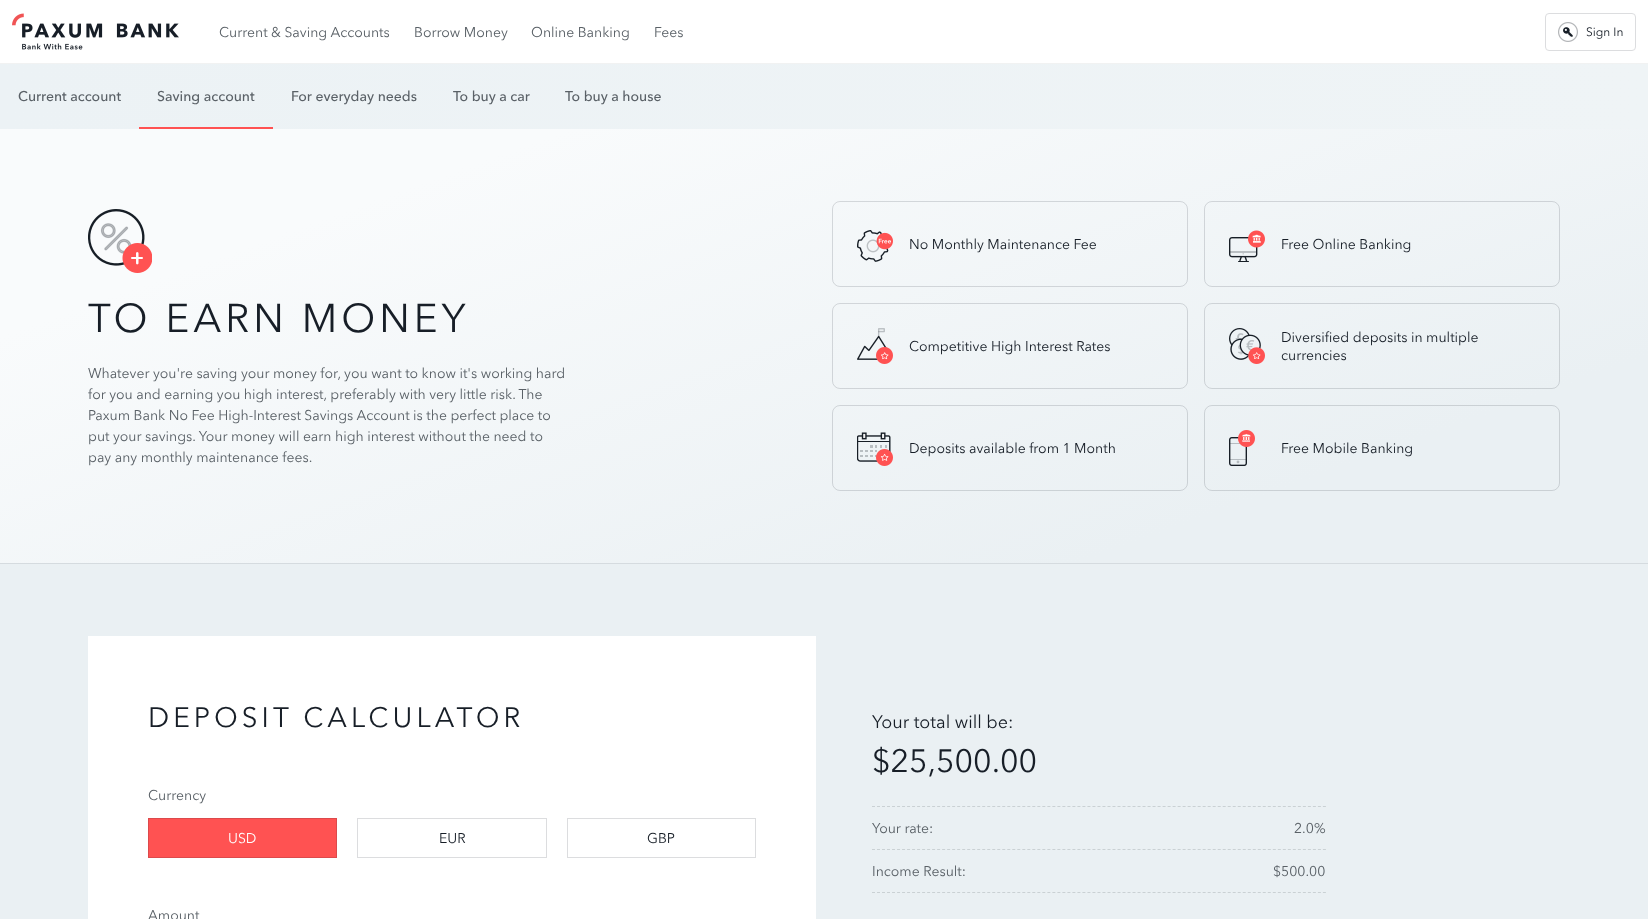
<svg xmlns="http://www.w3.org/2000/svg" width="1648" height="919">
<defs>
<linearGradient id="g1" gradientUnits="userSpaceOnUse" x1="1648" y1="96" x2="0" y2="96"><stop offset="0" stop-color="#eff4f6"/><stop offset="1" stop-color="#ecf2f5"/></linearGradient>
<linearGradient id="g2" gradientUnits="userSpaceOnUse" x1="990" y1="802" x2="658" y2="-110"><stop offset="0.2" stop-color="#eaf0f3"/><stop offset="0.8" stop-color="#f9fbfc"/></linearGradient>
</defs>
<rect width="100%" height="100%" fill="#fff"/>
<rect y="63" width="1648" height="1" fill="#f1f2f2"/>
<image x="12" y="13" width="167" height="37" href="media/1.png"/>
<text x="219" y="37" style="font-family:'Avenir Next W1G';font-size:14px;fill:#5a6167">Current &amp; Saving Accounts</text>
<text x="414" y="37" style="font-family:'Avenir Next W1G';font-size:14px;fill:#5a6167">Borrow Money</text>
<text x="531" y="37" style="font-family:'Avenir Next W1G';font-size:14px;fill:#5a6167">Online Banking</text>
<text x="654" y="37" style="font-family:'Avenir Next W1G';font-size:14px;fill:#5a6167">Fees</text>
<rect x="1545.5" y="13.5" width="90" height="37" rx="3.5" fill="none" stroke="#dcdddf"/>
<image x="1558" y="22" width="20" height="20" href="media/2.png"/>
<text x="1586" y="36" style="font-family:'Avenir Next W1G';font-size:12px;fill:#171e27">Sign In</text>
<rect y="564" width="1648" height="355" fill="#eaf0f3"/>
<rect y="64" width="1648" height="65" fill="url(#g1)"/>
<text x="18" y="101" style="font-family:'Avenir Next W1G';font-size:14px;font-weight:500;fill:#5a6167">Current account</text>
<text x="157" y="101" style="font-family:'Avenir Next W1G';font-size:14px;font-weight:500;fill:#5a6167">Saving account</text>
<rect x="139" y="127" width="134" height="2" fill="#ff5252"/>
<text x="291" y="101" style="font-family:'Avenir Next W1G';font-size:14px;font-weight:500;fill:#5a6167">For everyday needs</text>
<text x="453" y="101" style="font-family:'Avenir Next W1G';font-size:14px;font-weight:500;fill:#5a6167">To buy a car</text>
<text x="565" y="101" style="font-family:'Avenir Next W1G';font-size:14px;font-weight:500;fill:#5a6167">To buy a house</text>
<rect y="129" width="1648" height="434" fill="url(#g2)"/>
<image x="88" y="209" width="64" height="64" href="media/3.png"/>
<text x="88" y="332" style="font-family:'Avenir Next W1G';font-size:40px;letter-spacing:4px;fill:#171e27">TO EARN MONEY</text>
<text x="88" y="378" style="font-family:'Avenir Next W1G';font-size:14px;fill:#5a6167">Whatever you're saving your money for, you want to know it's working hard</text>
<text x="88" y="399" style="font-family:'Avenir Next W1G';font-size:14px;fill:#5a6167">for you and earning you high interest, preferably with very little risk. The</text>
<text x="88" y="420" style="font-family:'Avenir Next W1G';font-size:14px;fill:#5a6167">Paxum Bank No Fee High-Interest Savings Account is the perfect place to</text>
<text x="88" y="441" style="font-family:'Avenir Next W1G';font-size:14px;fill:#5a6167">put your savings. Your money will earn high interest without the need to</text>
<text x="88" y="462" style="font-family:'Avenir Next W1G';font-size:14px;fill:#5a6167">pay any monthly maintenance fees.</text>
<rect x="832.5" y="201.5" width="355" height="85" rx="7.5" fill="none" stroke="#171e2726"/>
<image x="857" y="230" width="36" height="32" href="media/4.png"/>
<text x="909" y="249" style="font-family:'Avenir Next W1G';font-size:14px;fill:#171e27">No Monthly Maintenance Fee</text>
<rect x="1204.5" y="201.5" width="355" height="85" rx="7.5" fill="none" stroke="#171e2726"/>
<image x="1229" y="230" width="36" height="32" href="media/5.png"/>
<text x="1281" y="249" style="font-family:'Avenir Next W1G';font-size:14px;fill:#171e27">Free Online Banking</text>
<rect x="832.5" y="303.5" width="355" height="85" rx="7.5" fill="none" stroke="#171e2726"/>
<image x="857" y="328" width="36" height="36" href="media/6.png"/>
<text x="909" y="351" style="font-family:'Avenir Next W1G';font-size:14px;fill:#171e27">Competitive High Interest Rates</text>
<rect x="1204.5" y="303.5" width="355" height="85" rx="7.5" fill="none" stroke="#171e2726"/>
<image x="1229" y="328" width="36" height="36" href="media/7.png"/>
<text x="1281" y="342" style="font-family:'Avenir Next W1G';font-size:14px;fill:#171e27">Diversified deposits in multiple</text>
<text x="1281" y="360" style="font-family:'Avenir Next W1G';font-size:14px;fill:#171e27">currencies</text>
<rect x="832.5" y="405.5" width="355" height="85" rx="7.5" fill="none" stroke="#171e2726"/>
<image x="857" y="432" width="36" height="34" href="media/8.png"/>
<text x="909" y="453" style="font-family:'Avenir Next W1G';font-size:14px;fill:#171e27">Deposits available from 1 Month</text>
<rect x="1204.5" y="405.5" width="355" height="85" rx="7.5" fill="none" stroke="#171e2726"/>
<image x="1229" y="430" width="26" height="36" href="media/9.png"/>
<text x="1281" y="453" style="font-family:'Avenir Next W1G';font-size:14px;fill:#171e27">Free Mobile Banking</text>
<rect y="563" width="1648" height="1" fill="#d5dbdf"/>
<rect x="88" y="636" width="728" height="283" fill="#fff"/>
<text x="148" y="727" style="font-family:'Avenir Next W1G';font-size:28px;letter-spacing:4px;fill:#171e27">DEPOSIT CALCULATOR</text>
<text x="148" y="800" style="font-family:'Avenir Next W1G';font-size:14px;fill:#5a6167">Currency</text>
<rect x="148.5" y="818.5" width="188" height="39" fill="#ff5252" stroke="#dc4a4c"/>
<text x="228" y="843" style="font-family:'Avenir Next W1G';font-size:14px;fill:#fff">USD</text>
<rect x="357.5" y="818.5" width="189" height="39" fill="none" stroke="#dcdddf"/>
<text x="439" y="843" style="font-family:'Avenir Next W1G';font-size:14px;fill:#171e27">EUR</text>
<rect x="567.5" y="818.5" width="188" height="39" fill="none" stroke="#dcdddf"/>
<text x="647" y="843" style="font-family:'Avenir Next W1G';font-size:14px;fill:#171e27">GBP</text>
<text x="148" y="920" style="font-family:'Avenir Next W1G';font-size:14px;fill:#5a6167">Amount</text>
<text x="872" y="728" style="font-family:'Avenir Next W1G';font-size:18px;fill:#171e27">Your total will be:</text>
<text x="872" y="772" style="font-family:'Avenir Next W1G';font-size:32px;fill:#171e27">$25,500.00</text>
<path d="M872 806.5h454" fill="none" stroke="#cad1d4" stroke-dasharray="3 2.01"/>
<text x="872" y="833" style="font-family:'Avenir Next W1G';font-size:14px;fill:#5a6167">Your rate:</text>
<text x="1294" y="833" style="font-family:'Avenir Next W1G';font-size:14px;fill:#5a6167">2.0%</text>
<path d="M872 849.5h454" fill="none" stroke="#cad1d4" stroke-dasharray="3 2.01"/>
<path d="M872 892.5h454" fill="none" stroke="#cad1d4" stroke-dasharray="3 2.01"/>
<text x="872" y="876" style="font-family:'Avenir Next W1G';font-size:14px;fill:#5a6167">Income Result:</text>
<text x="1273" y="876" style="font-family:'Avenir Next W1G';font-size:14px;fill:#5a6167">$500.00</text>
</svg>
